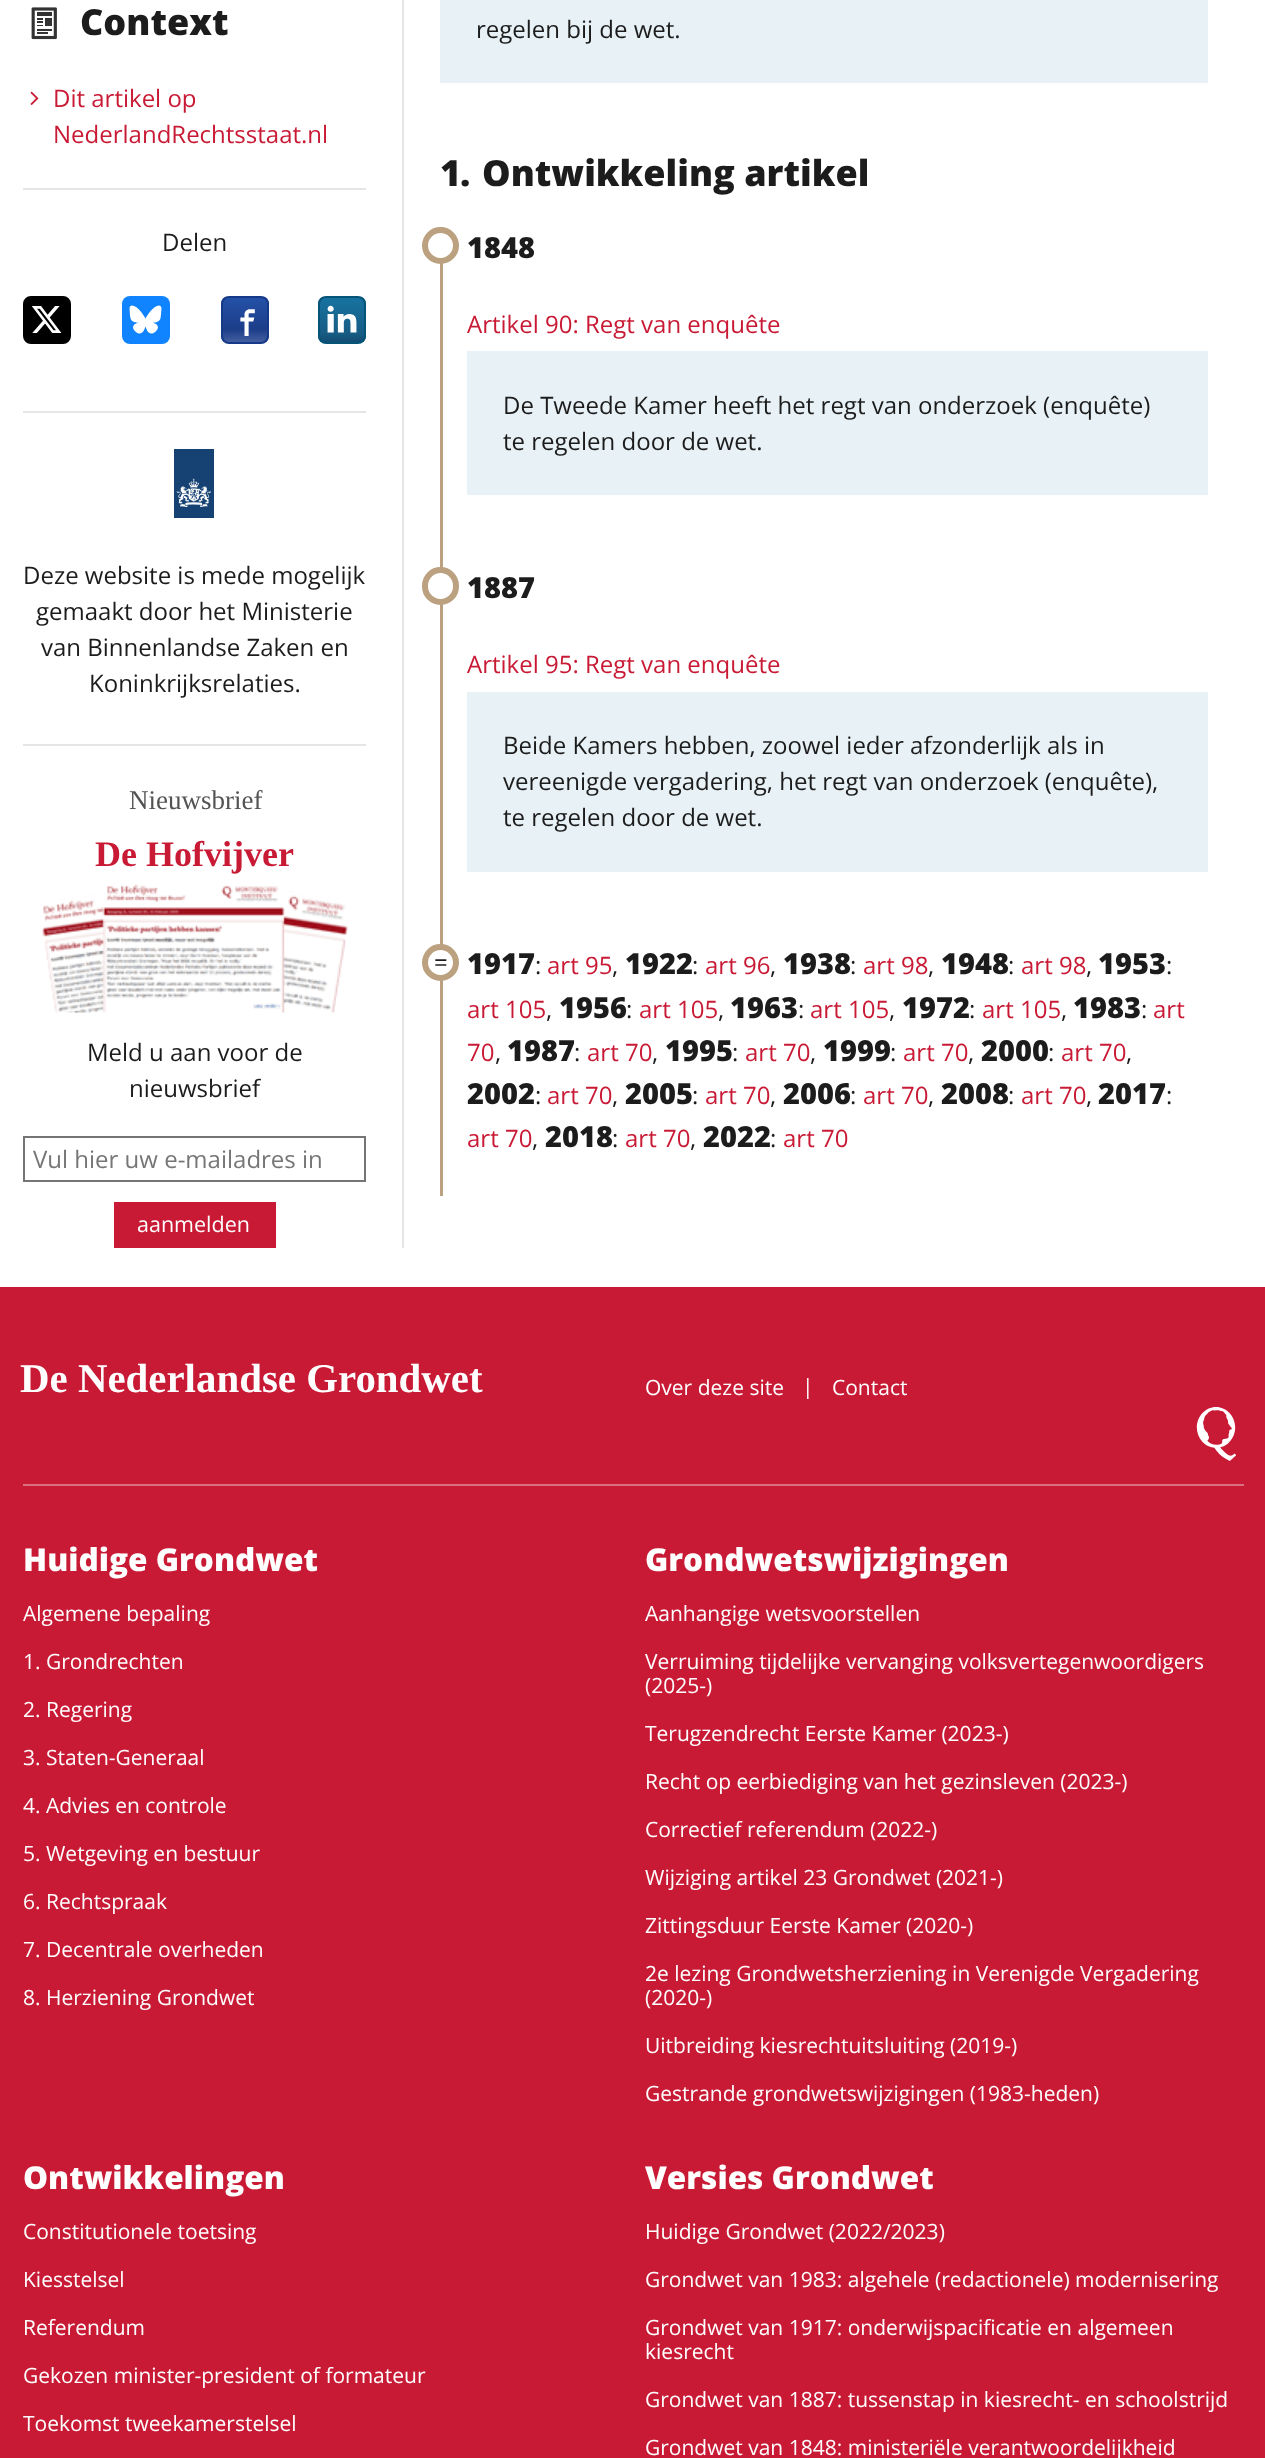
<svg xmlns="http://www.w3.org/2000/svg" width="1265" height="2458">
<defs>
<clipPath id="clip1"><rect x="221" y="296" width="48" height="48" rx="8"/></clipPath>
<linearGradient id="g1" gradientUnits="userSpaceOnUse" x1="245" y1="297" x2="245" y2="342"><stop offset="0" stop-color="#2452a8"/><stop offset="0.72" stop-color="#1c3d89"/><stop offset="1" stop-color="#445ea0"/></linearGradient>
<clipPath id="clip2"><rect x="318" y="296" width="48" height="48" rx="8"/></clipPath>
<linearGradient id="g2" gradientUnits="userSpaceOnUse" x1="342" y1="297" x2="342" y2="342"><stop offset="0" stop-color="#1773a0"/><stop offset="0.82" stop-color="#175c84"/><stop offset="1" stop-color="#124c72"/></linearGradient>
</defs>
<rect width="100%" height="100%" fill="#fff"/>
<rect x="402" width="2" height="1248" fill="#e5e5e7"/>
<image x="31" y="7" width="26" height="33" href="media/1.png"/>
<text x="80" y="35" style="font-family:Open Sans;font-size:36px;font-weight:800;fill:#1c1c1c">Context</text>
<image x="30" y="91" width="9" height="14" href="media/2.png"/>
<text x="53" y="107" style="font-family:Open Sans;font-size:24px;fill:#c91a35">Dit artikel op</text>
<text x="53" y="143" style="font-family:Open Sans;font-size:24px;fill:#c91a35">NederlandRechtsstaat.nl</text>
<rect x="440" width="768" height="83" fill="#e8f2f6"/>
<text x="476" y="38" style="font-family:Open Sans;font-size:24px;fill:#1c1c1c">regelen bij de wet.</text>
<text x="440" y="186" style="font-family:Open Sans;font-size:36px;font-weight:800;letter-spacing:-1px;fill:#1c1c1c">1.</text>
<text x="482" y="186" style="font-family:Open Sans;font-size:36px;font-weight:800;fill:#1c1c1c">Ontwikkeling artikel</text>
<rect x="440" y="227" width="3" height="969" fill="#bca181"/>
<circle cx="440.5" cy="245.5" r="15.5" fill="#fff" stroke="#bca181" stroke-width="6"/>
<text x="467" y="258" style="font-family:Open Sans;font-size:29px;font-weight:800;fill:#1c1c1c">1848</text>
<text x="467" y="333" style="font-family:Open Sans;font-size:24px;fill:#c91a35">Artikel 90: Regt van enquête</text>
<rect x="467" y="351" width="741" height="144" fill="#e8f2f6"/>
<text x="503" y="414" style="font-family:Open Sans;font-size:24px;fill:#1c1c1c">De Tweede Kamer heeft het regt van onderzoek (enquête)</text>
<text x="503" y="450" style="font-family:Open Sans;font-size:24px;fill:#1c1c1c">te regelen door de wet.</text>
<rect x="425" y="570" width="31" height="32" rx="15.5" fill="#fff" stroke="#bca181" stroke-width="6"/>
<text x="467" y="598" style="font-family:Open Sans;font-size:29px;font-weight:800;fill:#1c1c1c">1887</text>
<text x="467" y="673" style="font-family:Open Sans;font-size:24px;fill:#c91a35">Artikel 95: Regt van enquête</text>
<rect x="467" y="692" width="741" height="180" fill="#e8f2f6"/>
<text x="503" y="754" style="font-family:Open Sans;font-size:24px;fill:#1c1c1c">Beide Kamers hebben, zoowel ieder afzonderlijk als in</text>
<text x="503" y="790" style="font-family:Open Sans;font-size:24px;fill:#1c1c1c">vereenigde vergadering, het regt van onderzoek (enquête),</text>
<text x="503" y="826" style="font-family:Open Sans;font-size:24px;fill:#1c1c1c">te regelen door de wet.</text>
<circle cx="440.5" cy="962.5" r="15.5" fill="#fff" stroke="#bca181" stroke-width="6"/>
<text x="434" y="971" style="font-family:Open Sans;font-size:24px;fill:#1c1c1c">=</text>
<text x="467" y="974" style="font-family:Open Sans;font-size:29px;font-weight:800;fill:#1c1c1c">1917</text>
<text x="535" y="974" style="font-family:Open Sans;font-size:24px;fill:#1c1c1c">:</text>
<text x="547" y="974" style="font-family:Open Sans;font-size:24px;fill:#c91a35">art 95</text>
<text x="612" y="974" style="font-family:Open Sans;font-size:24px;fill:#1c1c1c">,</text>
<text x="625" y="974" style="font-family:Open Sans;font-size:29px;font-weight:800;fill:#1c1c1c">1922</text>
<text x="692" y="974" style="font-family:Open Sans;font-size:24px;fill:#1c1c1c">:</text>
<text x="705" y="974" style="font-family:Open Sans;font-size:24px;fill:#c91a35">art 96</text>
<text x="770" y="974" style="font-family:Open Sans;font-size:24px;fill:#1c1c1c">,</text>
<text x="783" y="974" style="font-family:Open Sans;font-size:29px;font-weight:800;fill:#1c1c1c">1938</text>
<text x="850" y="974" style="font-family:Open Sans;font-size:24px;fill:#1c1c1c">:</text>
<text x="863" y="974" style="font-family:Open Sans;font-size:24px;fill:#c91a35">art 98</text>
<text x="928" y="974" style="font-family:Open Sans;font-size:24px;fill:#1c1c1c">,</text>
<text x="941" y="974" style="font-family:Open Sans;font-size:29px;font-weight:800;fill:#1c1c1c">1948</text>
<text x="1008" y="974" style="font-family:Open Sans;font-size:24px;fill:#1c1c1c">:</text>
<text x="1021" y="974" style="font-family:Open Sans;font-size:24px;fill:#c91a35">art 98</text>
<text x="1086" y="974" style="font-family:Open Sans;font-size:24px;fill:#1c1c1c">,</text>
<text x="1098" y="974" style="font-family:Open Sans;font-size:29px;font-weight:800;fill:#1c1c1c">1953</text>
<text x="1166" y="974" style="font-family:Open Sans;font-size:24px;fill:#1c1c1c">:</text>
<text x="467" y="1018" style="font-family:Open Sans;font-size:24px;fill:#c91a35">art 105</text>
<text x="546" y="1018" style="font-family:Open Sans;font-size:24px;fill:#1c1c1c">,</text>
<text x="559" y="1018" style="font-family:Open Sans;font-size:29px;font-weight:800;fill:#1c1c1c">1956</text>
<text x="626" y="1018" style="font-family:Open Sans;font-size:24px;fill:#1c1c1c">:</text>
<text x="639" y="1018" style="font-family:Open Sans;font-size:24px;fill:#c91a35">art 105</text>
<text x="718" y="1018" style="font-family:Open Sans;font-size:24px;fill:#1c1c1c">,</text>
<text x="730" y="1018" style="font-family:Open Sans;font-size:29px;font-weight:800;fill:#1c1c1c">1963</text>
<text x="798" y="1018" style="font-family:Open Sans;font-size:24px;fill:#1c1c1c">:</text>
<text x="810" y="1018" style="font-family:Open Sans;font-size:24px;fill:#c91a35">art 105</text>
<text x="889" y="1018" style="font-family:Open Sans;font-size:24px;fill:#1c1c1c">,</text>
<text x="902" y="1018" style="font-family:Open Sans;font-size:29px;font-weight:800;fill:#1c1c1c">1972</text>
<text x="969" y="1018" style="font-family:Open Sans;font-size:24px;fill:#1c1c1c">:</text>
<text x="982" y="1018" style="font-family:Open Sans;font-size:24px;fill:#c91a35">art 105</text>
<text x="1061" y="1018" style="font-family:Open Sans;font-size:24px;fill:#1c1c1c">,</text>
<text x="1073" y="1018" style="font-family:Open Sans;font-size:29px;font-weight:800;fill:#1c1c1c">1983</text>
<text x="1141" y="1018" style="font-family:Open Sans;font-size:24px;fill:#1c1c1c">:</text>
<text x="1153" y="1018" style="font-family:Open Sans;font-size:24px;fill:#c91a35">art</text>
<text x="467" y="1061" style="font-family:Open Sans;font-size:24px;fill:#c91a35">70</text>
<text x="495" y="1061" style="font-family:Open Sans;font-size:24px;fill:#1c1c1c">,</text>
<text x="507" y="1061" style="font-family:Open Sans;font-size:29px;font-weight:800;fill:#1c1c1c">1987</text>
<text x="574" y="1061" style="font-family:Open Sans;font-size:24px;fill:#1c1c1c">:</text>
<text x="587" y="1061" style="font-family:Open Sans;font-size:24px;fill:#c91a35">art 70</text>
<text x="652" y="1061" style="font-family:Open Sans;font-size:24px;fill:#1c1c1c">,</text>
<text x="665" y="1061" style="font-family:Open Sans;font-size:29px;font-weight:800;fill:#1c1c1c">1995</text>
<text x="732" y="1061" style="font-family:Open Sans;font-size:24px;fill:#1c1c1c">:</text>
<text x="745" y="1061" style="font-family:Open Sans;font-size:24px;fill:#c91a35">art 70</text>
<text x="810" y="1061" style="font-family:Open Sans;font-size:24px;fill:#1c1c1c">,</text>
<text x="823" y="1061" style="font-family:Open Sans;font-size:29px;font-weight:800;fill:#1c1c1c">1999</text>
<text x="890" y="1061" style="font-family:Open Sans;font-size:24px;fill:#1c1c1c">:</text>
<text x="903" y="1061" style="font-family:Open Sans;font-size:24px;fill:#c91a35">art 70</text>
<text x="968" y="1061" style="font-family:Open Sans;font-size:24px;fill:#1c1c1c">,</text>
<text x="981" y="1061" style="font-family:Open Sans;font-size:29px;font-weight:800;fill:#1c1c1c">2000</text>
<text x="1048" y="1061" style="font-family:Open Sans;font-size:24px;fill:#1c1c1c">:</text>
<text x="1061" y="1061" style="font-family:Open Sans;font-size:24px;fill:#c91a35">art 70</text>
<text x="1126" y="1061" style="font-family:Open Sans;font-size:24px;fill:#1c1c1c">,</text>
<text x="467" y="1104" style="font-family:Open Sans;font-size:29px;font-weight:800;fill:#1c1c1c">2002</text>
<text x="535" y="1104" style="font-family:Open Sans;font-size:24px;fill:#1c1c1c">:</text>
<text x="547" y="1104" style="font-family:Open Sans;font-size:24px;fill:#c91a35">art 70</text>
<text x="612" y="1104" style="font-family:Open Sans;font-size:24px;fill:#1c1c1c">,</text>
<text x="625" y="1104" style="font-family:Open Sans;font-size:29px;font-weight:800;fill:#1c1c1c">2005</text>
<text x="692" y="1104" style="font-family:Open Sans;font-size:24px;fill:#1c1c1c">:</text>
<text x="705" y="1104" style="font-family:Open Sans;font-size:24px;fill:#c91a35">art 70</text>
<text x="770" y="1104" style="font-family:Open Sans;font-size:24px;fill:#1c1c1c">,</text>
<text x="783" y="1104" style="font-family:Open Sans;font-size:29px;font-weight:800;fill:#1c1c1c">2006</text>
<text x="850" y="1104" style="font-family:Open Sans;font-size:24px;fill:#1c1c1c">:</text>
<text x="863" y="1104" style="font-family:Open Sans;font-size:24px;fill:#c91a35">art 70</text>
<text x="928" y="1104" style="font-family:Open Sans;font-size:24px;fill:#1c1c1c">,</text>
<text x="941" y="1104" style="font-family:Open Sans;font-size:29px;font-weight:800;fill:#1c1c1c">2008</text>
<text x="1008" y="1104" style="font-family:Open Sans;font-size:24px;fill:#1c1c1c">:</text>
<text x="1021" y="1104" style="font-family:Open Sans;font-size:24px;fill:#c91a35">art 70</text>
<text x="1086" y="1104" style="font-family:Open Sans;font-size:24px;fill:#1c1c1c">,</text>
<text x="1098" y="1104" style="font-family:Open Sans;font-size:29px;font-weight:800;fill:#1c1c1c">2017</text>
<text x="1166" y="1104" style="font-family:Open Sans;font-size:24px;fill:#1c1c1c">:</text>
<text x="467" y="1147" style="font-family:Open Sans;font-size:24px;fill:#c91a35">art 70</text>
<text x="532" y="1147" style="font-family:Open Sans;font-size:24px;fill:#1c1c1c">,</text>
<text x="545" y="1147" style="font-family:Open Sans;font-size:29px;font-weight:800;fill:#1c1c1c">2018</text>
<text x="612" y="1147" style="font-family:Open Sans;font-size:24px;fill:#1c1c1c">:</text>
<text x="625" y="1147" style="font-family:Open Sans;font-size:24px;fill:#c91a35">art 70</text>
<text x="690" y="1147" style="font-family:Open Sans;font-size:24px;fill:#1c1c1c">,</text>
<text x="703" y="1147" style="font-family:Open Sans;font-size:29px;font-weight:800;fill:#1c1c1c">2022</text>
<text x="770" y="1147" style="font-family:Open Sans;font-size:24px;fill:#1c1c1c">:</text>
<text x="783" y="1147" style="font-family:Open Sans;font-size:24px;fill:#c91a35">art 70</text>
<rect x="23" y="188" width="343" height="2" fill="#e5e5e7"/>
<text x="162" y="251" style="font-family:Open Sans;font-size:24px;fill:#1c1c1c">Delen</text>
<rect x="24" y="297" width="46" height="46" rx="7" fill="#000" stroke="#000" stroke-width="2"/>
<image x="31" y="306" width="31" height="27" href="media/3.png"/>
<rect x="122" y="296" width="48" height="48" rx="8" fill="#1083fe"/>
<image x="129" y="305" width="33" height="29" href="media/4.png"/>
<g clip-path="url(#clip1)">
<rect x="221" y="297" width="48" height="45" fill="url(#g1)"/>
</g>
<rect x="222" y="297" width="46" height="46" rx="7" fill="none" stroke="#163a87" stroke-width="2"/>
<image x="240" y="309" width="15" height="27" href="media/5.png"/>
<g clip-path="url(#clip2)">
<rect x="318" y="297" width="48" height="45" fill="url(#g2)"/>
</g>
<rect x="319" y="297" width="46" height="46" rx="7" fill="none" stroke="#075479" stroke-width="2"/>
<image x="327" y="305" width="30" height="28" href="media/6.png"/>
<rect x="23" y="411" width="343" height="2" fill="#e5e5e7"/>
<image x="174" y="449" width="40" height="69" href="media/7.png"/>
<text x="23" y="584" style="font-family:Open Sans;font-size:24px;fill:#1c1c1c">Deze website is mede mogelijk</text>
<text x="36" y="620" style="font-family:Open Sans;font-size:24px;fill:#1c1c1c">gemaakt door het Ministerie</text>
<text x="41" y="656" style="font-family:Open Sans;font-size:24px;fill:#1c1c1c">van Binnenlandse Zaken en</text>
<text x="89" y="692" style="font-family:Open Sans;font-size:24px;fill:#1c1c1c">Koninkrijksrelaties.</text>
<rect x="23" y="744" width="343" height="2" fill="#e5e5e7"/>
<text x="129" y="809" style="font-family:Liberation Serif;font-size:27px;fill:#535352">Nieuwsbrief</text>
<text x="95" y="866" style="font-family:Liberation Serif;font-size:36px;font-weight:bold;fill:#c91a35">De Hofvijver</text>
<image x="41" y="884" width="308" height="129" href="media/8.png"/>
<text x="87" y="1061" style="font-family:Open Sans;font-size:24px;fill:#1c1c1c">Meld u aan voor de</text>
<text x="129" y="1097" style="font-family:Open Sans;font-size:24px;fill:#1c1c1c">nieuwsbrief</text>
<rect x="24" y="1137" width="341" height="44" fill="none" stroke="#757575" stroke-width="2"/>
<text x="33" y="1168" style="font-family:Open Sans;font-size:24px;fill:#767676">Vul hier uw e-mailadres in</text>
<rect x="114" y="1202" width="162" height="46" fill="#c91a35"/>
<text x="137" y="1232" style="font-family:Open Sans;font-size:21.5px;fill:#fefefe">aanmelden</text>
<rect y="1287" width="1265" height="1171" fill="#c91a35"/>
<rect x="23" y="1484" width="1221" height="2" fill="#da6f80"/>
<text x="20" y="1392" style="font-family:Liberation Serif;font-size:40.9px;font-weight:bold;fill:#fefefe">De Nederlandse Grondwet</text>
<text x="645" y="1395" style="font-family:Open Sans;font-size:21px;fill:#fefefe">Over deze site</text>
<text x="802" y="1394" style="font-family:Open Sans;font-size:21px;fill:#fefefe">|</text>
<text x="832" y="1395" style="font-family:Open Sans;font-size:21px;fill:#fefefe">Contact</text>
<image x="1196" y="1407" width="40" height="54" href="media/9.png"/>
<text x="23" y="1571" style="font-family:Open Sans;font-size:31.5px;font-weight:800;fill:#fefefe">Huidige Grondwet</text>
<text x="23" y="1621" style="font-family:Open Sans;font-size:21px;fill:#fefefe">Algemene bepaling</text>
<text x="23" y="1669" style="font-family:Open Sans;font-size:21px;fill:#fefefe">1. Grondrechten</text>
<text x="23" y="1717" style="font-family:Open Sans;font-size:21px;fill:#fefefe">2. Regering</text>
<text x="23" y="1765" style="font-family:Open Sans;font-size:21px;fill:#fefefe">3. Staten-Generaal</text>
<text x="23" y="1813" style="font-family:Open Sans;font-size:21px;fill:#fefefe">4. Advies en controle</text>
<text x="23" y="1861" style="font-family:Open Sans;font-size:21px;fill:#fefefe">5. Wetgeving en bestuur</text>
<text x="23" y="1909" style="font-family:Open Sans;font-size:21px;fill:#fefefe">6. Rechtspraak</text>
<text x="23" y="1957" style="font-family:Open Sans;font-size:21px;fill:#fefefe">7. Decentrale overheden</text>
<text x="23" y="2005" style="font-family:Open Sans;font-size:21px;fill:#fefefe">8. Herziening Grondwet</text>
<text x="645" y="1571" style="font-family:Open Sans;font-size:31.5px;font-weight:800;fill:#fefefe">Grondwetswijzigingen</text>
<text x="645" y="1621" style="font-family:Open Sans;font-size:21px;fill:#fefefe">Aanhangige wetsvoorstellen</text>
<text x="645" y="1669" style="font-family:Open Sans;font-size:21px;fill:#fefefe">Verruiming tijdelijke vervanging volksvertegenwoordigers</text>
<text x="645" y="1693" style="font-family:Open Sans;font-size:21px;fill:#fefefe">(2025-)</text>
<text x="645" y="1741" style="font-family:Open Sans;font-size:21px;fill:#fefefe">Terugzendrecht Eerste Kamer (2023-)</text>
<text x="645" y="1789" style="font-family:Open Sans;font-size:21px;fill:#fefefe">Recht op eerbiediging van het gezinsleven (2023-)</text>
<text x="645" y="1837" style="font-family:Open Sans;font-size:21px;fill:#fefefe">Correctief referendum (2022-)</text>
<text x="645" y="1885" style="font-family:Open Sans;font-size:21px;fill:#fefefe">Wijziging artikel 23 Grondwet (2021-)</text>
<text x="645" y="1933" style="font-family:Open Sans;font-size:21px;fill:#fefefe">Zittingsduur Eerste Kamer (2020-)</text>
<text x="645" y="1981" style="font-family:Open Sans;font-size:21px;fill:#fefefe">2e lezing Grondwetsherziening in Verenigde Vergadering</text>
<text x="645" y="2005" style="font-family:Open Sans;font-size:21px;fill:#fefefe">(2020-)</text>
<text x="645" y="2053" style="font-family:Open Sans;font-size:21px;fill:#fefefe">Uitbreiding kiesrechtuitsluiting (2019-)</text>
<text x="645" y="2101" style="font-family:Open Sans;font-size:21px;fill:#fefefe">Gestrande grondwetswijzigingen (1983-heden)</text>
<text x="23" y="2189" style="font-family:Open Sans;font-size:31.5px;font-weight:800;fill:#fefefe">Ontwikkelingen</text>
<text x="23" y="2239" style="font-family:Open Sans;font-size:21px;fill:#fefefe">Constitutionele toetsing</text>
<text x="23" y="2287" style="font-family:Open Sans;font-size:21px;fill:#fefefe">Kiesstelsel</text>
<text x="23" y="2335" style="font-family:Open Sans;font-size:21px;fill:#fefefe">Referendum</text>
<text x="23" y="2383" style="font-family:Open Sans;font-size:21px;fill:#fefefe">Gekozen minister-president of formateur</text>
<text x="23" y="2431" style="font-family:Open Sans;font-size:21px;fill:#fefefe">Toekomst tweekamerstelsel</text>
<text x="645" y="2189" style="font-family:Open Sans;font-size:31.5px;font-weight:800;fill:#fefefe">Versies Grondwet</text>
<text x="645" y="2239" style="font-family:Open Sans;font-size:21px;fill:#fefefe">Huidige Grondwet (2022/2023)</text>
<text x="645" y="2287" style="font-family:Open Sans;font-size:21px;fill:#fefefe">Grondwet van 1983: algehele (redactionele) modernisering</text>
<text x="645" y="2335" style="font-family:Open Sans;font-size:21px;fill:#fefefe">Grondwet van 1917: onderwijspacificatie en algemeen</text>
<text x="645" y="2359" style="font-family:Open Sans;font-size:21px;fill:#fefefe">kiesrecht</text>
<text x="645" y="2407" style="font-family:Open Sans;font-size:21px;fill:#fefefe">Grondwet van 1887: tussenstap in kiesrecht- en schoolstrijd</text>
<text x="645" y="2455" style="font-family:Open Sans;font-size:21px;fill:#fefefe">Grondwet van 1848: ministeriële verantwoordelijkheid</text>
</svg>
